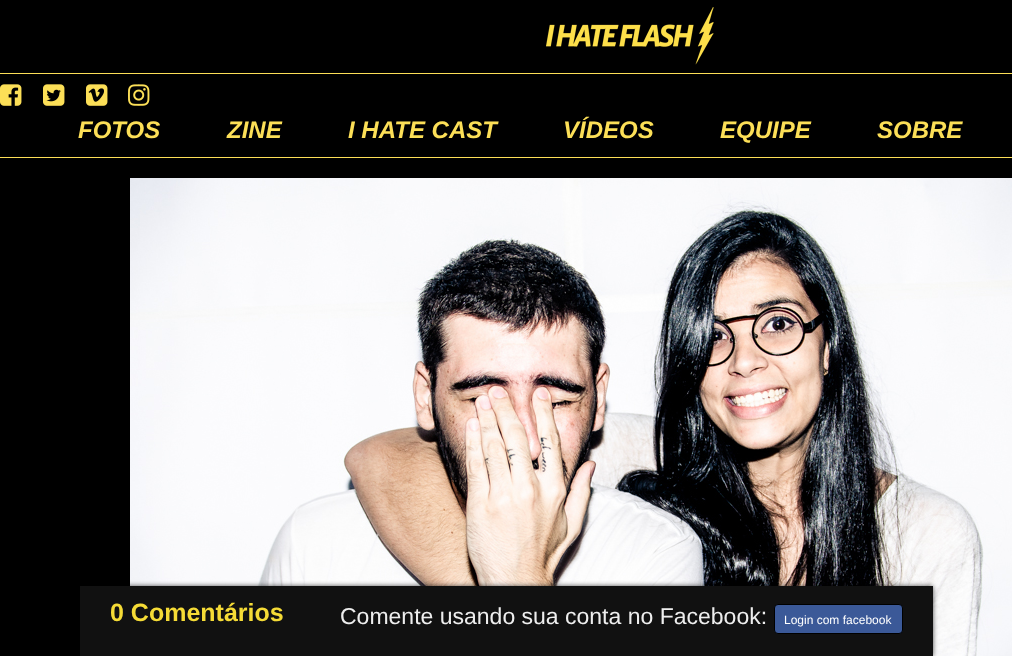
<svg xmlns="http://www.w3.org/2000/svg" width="1012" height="656">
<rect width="100%" height="100%" fill="#000"/>
<rect y="73" width="1012" height="1" fill="#fcdf57"/>
<image x="546" y="7" width="168" height="58" href="media/1.png"/>
<rect y="157" width="1012" height="1" fill="#fcdf57"/>
<image x="0" y="84" width="22" height="22" href="media/2.png"/>
<image x="43" y="84" width="22" height="22" href="media/3.png"/>
<image x="86" y="84" width="22" height="22" href="media/4.png"/>
<image x="128" y="84" width="22" height="22" href="media/5.png"/>
<text x="78" y="138" style="font-family:Liberation Sans;font-size:24px;font-weight:bold;font-style:italic;fill:#fcdf57">FOTOS</text>
<text x="227" y="138" style="font-family:Liberation Sans;font-size:24px;font-weight:bold;font-style:italic;fill:#fcdf57">ZINE</text>
<text x="348" y="138" style="font-family:Liberation Sans;font-size:24px;font-weight:bold;font-style:italic;fill:#fcdf57">I HATE CAST</text>
<text x="563" y="138" style="font-family:Liberation Sans;font-size:24px;font-weight:bold;font-style:italic;fill:#fcdf57">VÍDEOS</text>
<text x="720" y="138" style="font-family:Liberation Sans;font-size:24px;font-weight:bold;font-style:italic;fill:#fcdf57">EQUIPE</text>
<text x="877" y="138" style="font-family:Liberation Sans;font-size:24px;font-weight:bold;font-style:italic;fill:#fcdf57">SOBRE</text>
<image x="130" y="178" width="882" height="478" href="media/6.png"/>
<rect x="80" y="586" width="853" height="70" fill="#000000b3" filter="blur(2.5px)"/>
<rect x="80" y="586" width="853" height="70" fill="#111"/>
<text x="110" y="621" style="font-family:Liberation Sans;font-size:25px;font-weight:bold;fill:#f5db36">0 Comentários</text>
<text x="340" y="624" style="font-family:Liberation Sans;font-size:23px;fill:#eee">Comente usando sua conta no Facebook:</text>
<rect x="774.5" y="604.5" width="128" height="29" rx="3.5" fill="#3b5998" stroke="#000"/>
<text x="784" y="624" style="font-family:Liberation Sans;font-size:12px;fill:#fff">Login com facebook</text>
</svg>
